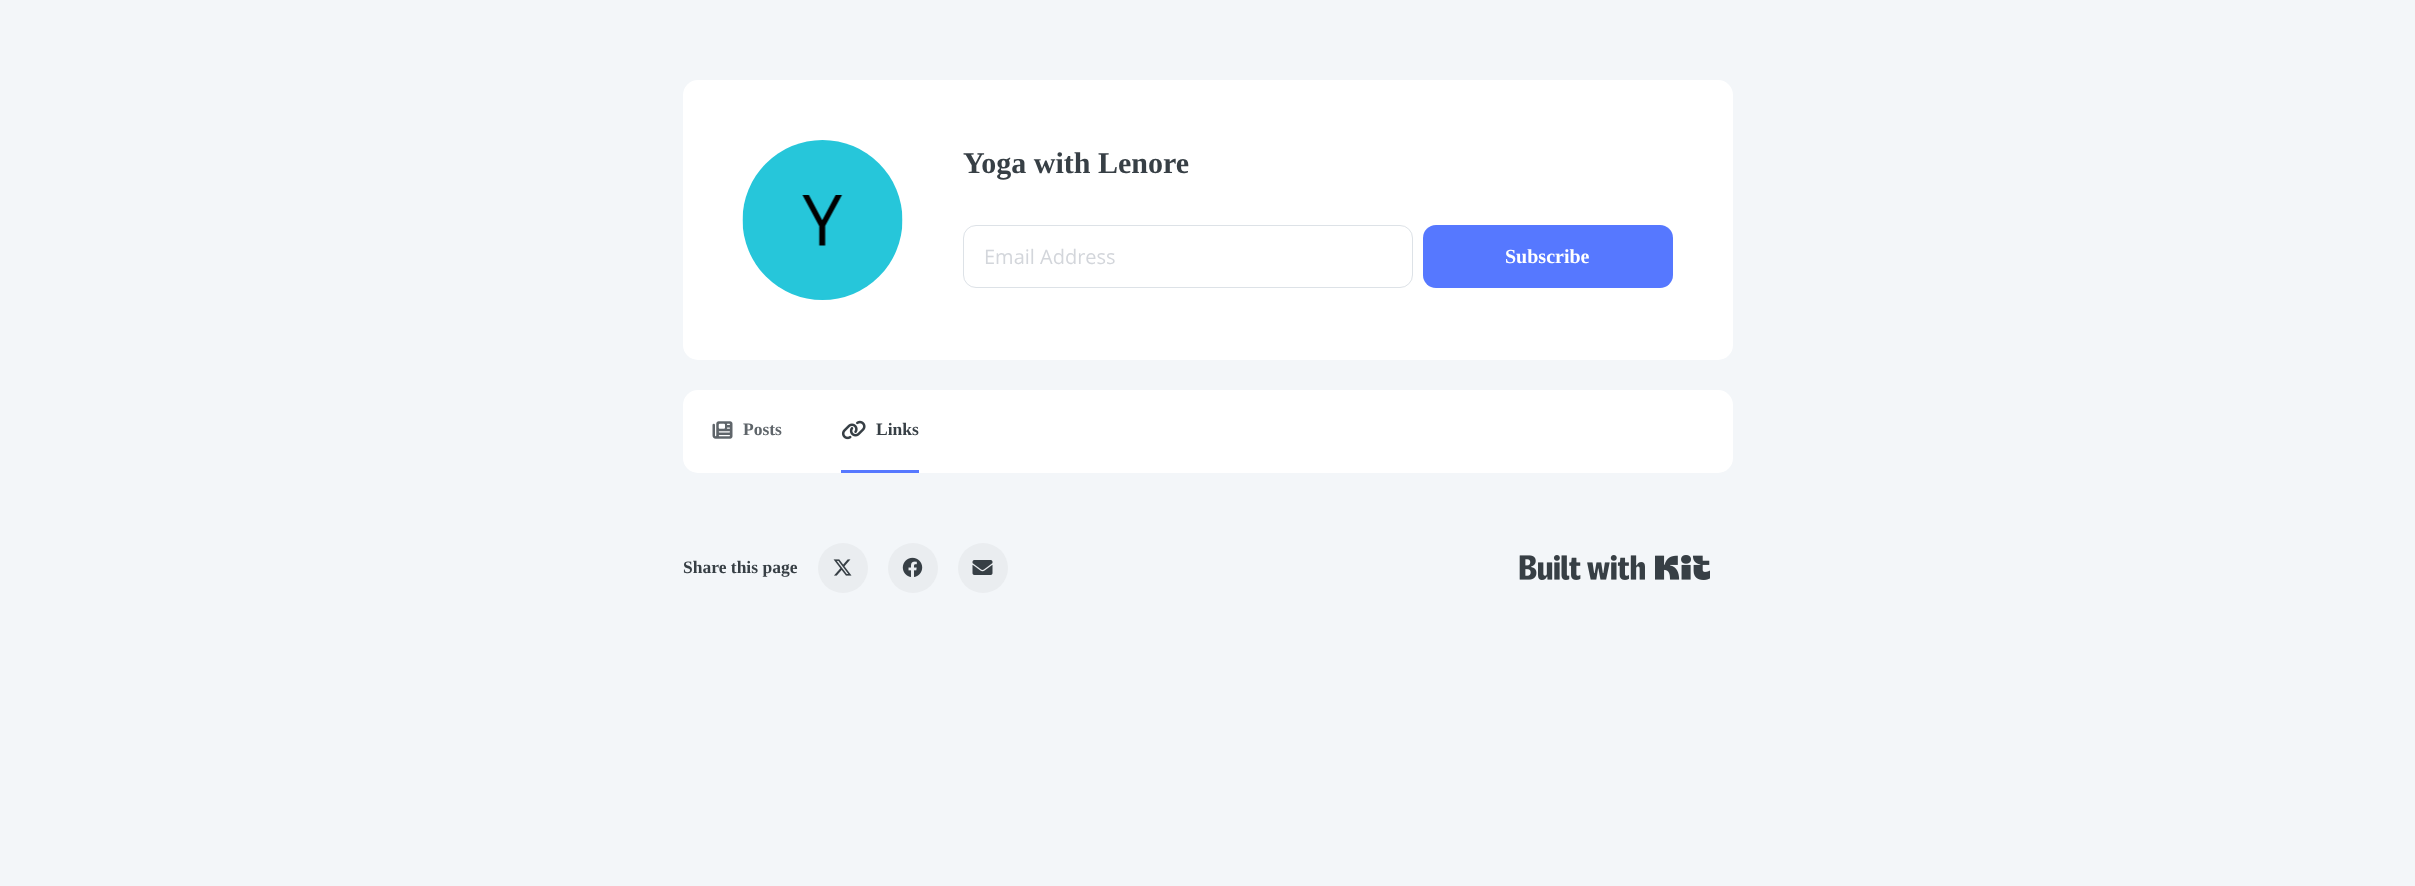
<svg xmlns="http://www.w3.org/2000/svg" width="2415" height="886">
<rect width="100%" height="100%" fill="#f3f6f9"/>
<rect x="683" y="80" width="1050" height="280" rx="15" fill="#fff"/>
<image x="742" y="140" width="161" height="160" href="media/1.png"/>
<text x="963" y="173" style="font-family:Liberation Serif;font-size:30px;font-weight:bold;fill:#373f45">Yoga with Lenore</text>
<rect x="963.5" y="225.5" width="449" height="62" rx="12.5" fill="none" stroke="#dde2e7"/>
<text x="984" y="264" style="font-family:Open Sans;font-size:20px;fill:#d3d6db">Email Address</text>
<rect x="1423" y="225" width="250" height="63" rx="13" fill="#5678ff"/>
<text x="1505" y="263" style="font-family:Liberation Serif;font-size:20px;font-weight:bold;fill:#fff">Subscribe</text>
<rect x="683" y="390" width="1050" height="83" rx="15" fill="#fff"/>
<image x="712" y="421" width="21" height="18" href="media/2.png"/>
<text x="743" y="435" style="font-family:Liberation Serif;font-size:17.5px;font-weight:bold;fill:#5f656a">Posts</text>
<rect x="841" y="470" width="78" height="3" fill="#5678ff"/>
<image x="841" y="420" width="25" height="20" href="media/3.png"/>
<text x="876" y="435" style="font-family:Liberation Serif;font-size:17.5px;font-weight:bold;fill:#373f45">Links</text>
<text x="683" y="573" style="font-family:Liberation Serif;font-size:17.5px;font-weight:bold;fill:#373f45">Share this page</text>
<circle cx="843" cy="568" r="25" fill="#eaedf0"/>
<image x="833" y="559" width="19" height="17" href="media/4.png"/>
<circle cx="913" cy="568" r="25" fill="#eaedf0"/>
<image x="902" y="557" width="21" height="20" href="media/5.png"/>
<circle cx="983" cy="568" r="25" fill="#eaedf0"/>
<image x="972" y="560" width="21" height="15" href="media/6.png"/>
<image x="1519" y="555" width="191" height="25" href="media/7.png"/>
</svg>
